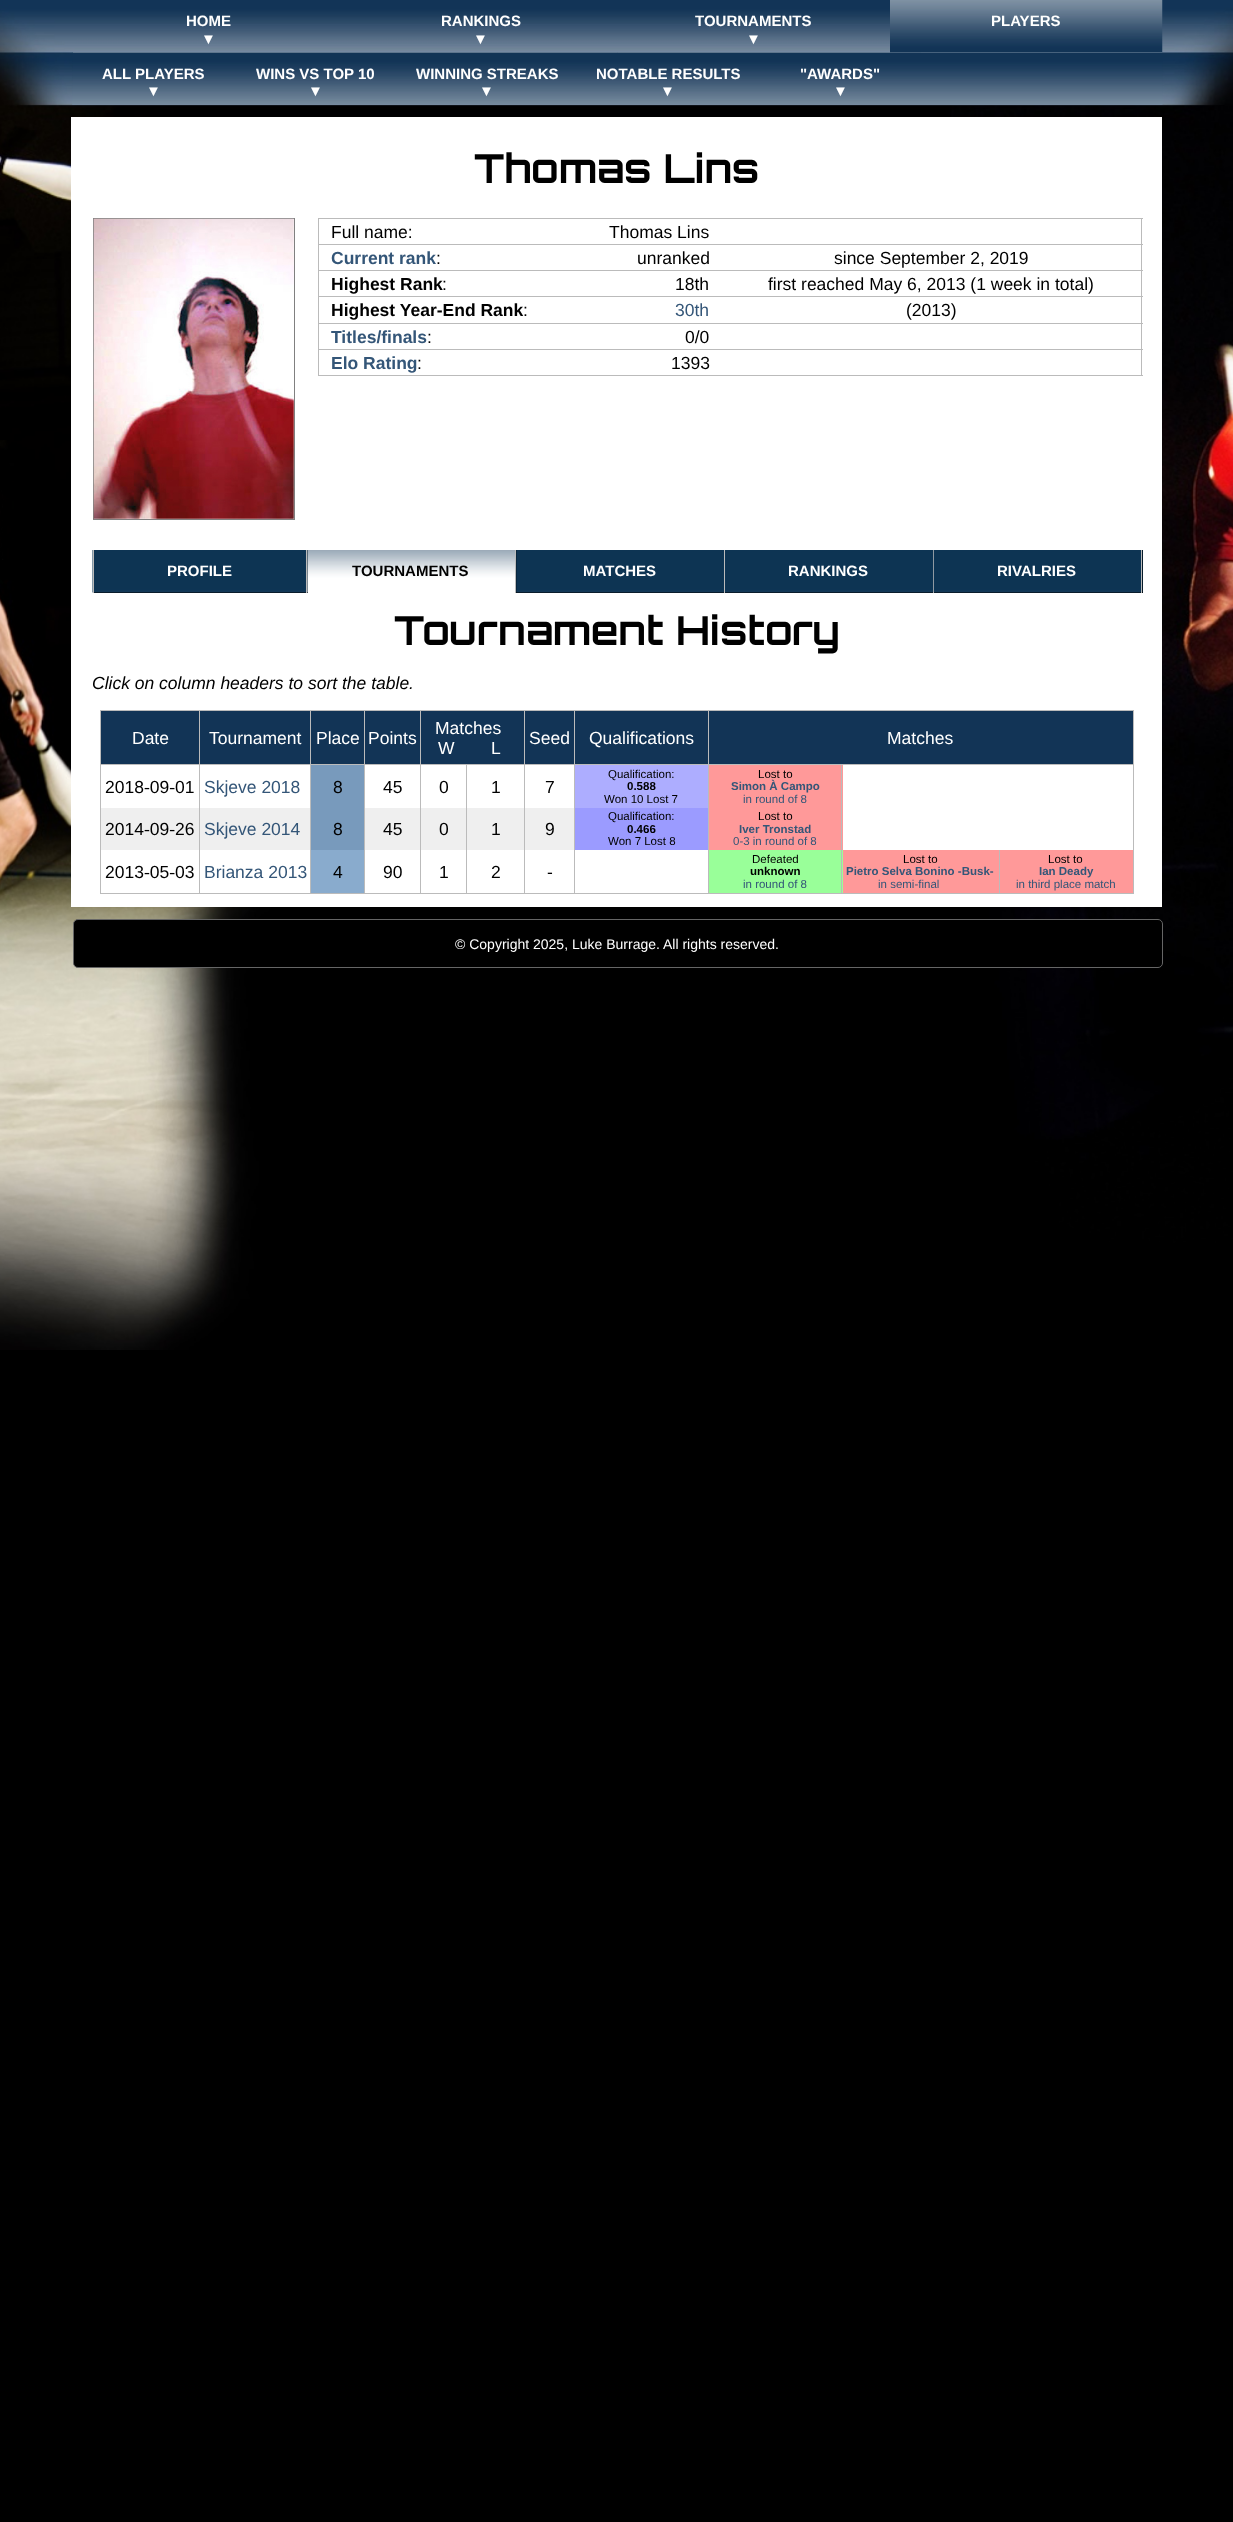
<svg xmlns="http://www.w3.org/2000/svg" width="1233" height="2522">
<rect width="100%" height="100%" fill="#000"/>
<image x="0" y="0" width="1233" height="1350" href="media/1.png"/>
<image x="72" y="52" width="1091" height="53" href="media/5.png"/>
<image x="72" y="52" width="163" height="53" href="media/6.png"/>
<image x="345" y="52" width="53" height="1" href="media/7.png"/>
<image x="397" y="52" width="181" height="1" href="media/8.png"/>
<image x="577" y="52" width="41" height="1" href="media/9.png"/>
<rect x="890" y="52" width="31" height="1" fill="#1f3f5f"/>
<image x="72" y="52" width="1091" height="1" href="media/2.png"/>
<rect x="345" y="52" width="817" height="1" fill="#788b9f40"/>
<rect x="73" y="52" width="272" height="1" fill="#5f768d"/>
<text x="186" y="26" style="font-family:Liberation Sans;font-size:15px;font-weight:bold;fill:#fff">HOME</text>
<text x="201" y="44" style="font-family:Liberation Sans;font-size:15px;font-weight:bold;fill:#fff">▼</text>
<image x="345" y="52" width="273" height="1" href="media/3.png"/>
<text x="441" y="26" style="font-family:Liberation Sans;font-size:15px;font-weight:bold;fill:#fff">RANKINGS</text>
<text x="473" y="44" style="font-family:Liberation Sans;font-size:15px;font-weight:bold;fill:#fff">▼</text>
<rect x="618" y="52" width="272" height="1" fill="#5f768d"/>
<text x="695" y="26" style="font-family:Liberation Sans;font-size:15px;font-weight:bold;fill:#fff">TOURNAMENTS</text>
<text x="746" y="44" style="font-family:Liberation Sans;font-size:15px;font-weight:bold;fill:#fff">▼</text>
<image x="890" y="0" width="273" height="53" href="media/4.png"/>
<text x="991" y="26" style="font-family:Liberation Sans;font-size:15px;font-weight:bold;fill:#fff">PLAYERS</text>
<text x="102" y="79" style="font-family:Liberation Sans;font-size:15px;font-weight:bold;fill:#fff">ALL PLAYERS</text>
<text x="146" y="96" style="font-family:Liberation Sans;font-size:15px;font-weight:bold;fill:#fff">▼</text>
<text x="256" y="79" style="font-family:Liberation Sans;font-size:15px;font-weight:bold;fill:#fff">WINS VS TOP 10</text>
<text x="308" y="96" style="font-family:Liberation Sans;font-size:15px;font-weight:bold;fill:#fff">▼</text>
<text x="416" y="79" style="font-family:Liberation Sans;font-size:15px;font-weight:bold;fill:#fff">WINNING STREAKS</text>
<text x="479" y="96" style="font-family:Liberation Sans;font-size:15px;font-weight:bold;fill:#fff">▼</text>
<text x="596" y="79" style="font-family:Liberation Sans;font-size:15px;font-weight:bold;fill:#fff">NOTABLE RESULTS</text>
<text x="660" y="96" style="font-family:Liberation Sans;font-size:15px;font-weight:bold;fill:#fff">▼</text>
<text x="800" y="79" style="font-family:Liberation Sans;font-size:15px;font-weight:bold;fill:#fff">"AWARDS"</text>
<text x="833" y="96" style="font-family:Liberation Sans;font-size:15px;font-weight:bold;fill:#fff">▼</text>
<rect x="71" y="117" width="1091" height="790" fill="#fff"/>
<text x="474" y="183" style="font-family:Orbitron;font-size:40px;font-weight:bold;fill:#000">Thomas Lins</text>
<rect x="93.5" y="218.5" width="201" height="301" fill="none" stroke="#808080"/>
<image x="93" y="218" width="201" height="301" href="media/10.png"/>
<rect x="318" y="218" width="825" height="1" fill="#bbb"/>
<rect x="318" y="244" width="825" height="1" fill="#bbb"/>
<rect x="318" y="270" width="825" height="1" fill="#bbb"/>
<rect x="318" y="296" width="825" height="1" fill="#bbb"/>
<rect x="318" y="323" width="825" height="1" fill="#bbb"/>
<rect x="318" y="349" width="825" height="1" fill="#bbb"/>
<rect x="1141" y="349" width="1" height="27" fill="#bbb"/>
<rect x="1141" y="323" width="1" height="27" fill="#bbb"/>
<rect x="1141" y="296" width="1" height="28" fill="#bbb"/>
<rect x="1141" y="270" width="1" height="28" fill="#bbb"/>
<rect x="1141" y="244" width="1" height="27" fill="#bbb"/>
<rect x="1141" y="218" width="1" height="27" fill="#bbb"/>
<rect x="318" y="375" width="825" height="1" fill="#bbb"/>
<rect x="318" y="349" width="1" height="27" fill="#bbb"/>
<rect x="318" y="323" width="1" height="27" fill="#bbb"/>
<rect x="318" y="296" width="1" height="28" fill="#bbb"/>
<rect x="318" y="270" width="1" height="28" fill="#bbb"/>
<rect x="318" y="244" width="1" height="27" fill="#bbb"/>
<rect x="318" y="218" width="1" height="27" fill="#bbb"/>
<text x="331" y="238" style="font-family:Liberation Sans;font-size:17.5px;fill:#000">Full name:</text>
<text x="609" y="238" style="font-family:Liberation Sans;font-size:17.5px;fill:#000">Thomas Lins</text>
<text x="331" y="264" style="font-family:Liberation Sans;font-size:17.5px;font-weight:bold;fill:#345678">Current rank</text>
<text x="436" y="264" style="font-family:Liberation Sans;font-size:17.5px;fill:#000">:</text>
<text x="637" y="264" style="font-family:Liberation Sans;font-size:17.5px;fill:#000">unranked</text>
<text x="834" y="264" style="font-family:Liberation Sans;font-size:17.5px;fill:#000">since September 2, 2019</text>
<text x="331" y="290" style="font-family:Liberation Sans;font-size:17.5px;font-weight:bold;fill:#000">Highest Rank</text>
<text x="442" y="290" style="font-family:Liberation Sans;font-size:17.5px;fill:#000">:</text>
<text x="675" y="290" style="font-family:Liberation Sans;font-size:17.5px;fill:#000">18th</text>
<text x="768" y="290" style="font-family:Liberation Sans;font-size:17.5px;fill:#000">first reached May 6, 2013 (1 week in total)</text>
<text x="331" y="316" style="font-family:Liberation Sans;font-size:17.5px;font-weight:bold;fill:#000">Highest Year-End Rank</text>
<text x="523" y="316" style="font-family:Liberation Sans;font-size:17.5px;fill:#000">:</text>
<text x="675" y="316" style="font-family:Liberation Sans;font-size:17.5px;fill:#345678">30th</text>
<text x="906" y="316" style="font-family:Liberation Sans;font-size:17.5px;fill:#000">(2013)</text>
<text x="331" y="343" style="font-family:Liberation Sans;font-size:17.5px;font-weight:bold;fill:#345678">Titles/finals</text>
<text x="427" y="343" style="font-family:Liberation Sans;font-size:17.5px;fill:#000">:</text>
<text x="685" y="343" style="font-family:Liberation Sans;font-size:17.5px;fill:#000">0/0</text>
<text x="331" y="369" style="font-family:Liberation Sans;font-size:17.5px;font-weight:bold;fill:#345678">Elo Rating</text>
<text x="417" y="369" style="font-family:Liberation Sans;font-size:17.5px;fill:#000">:</text>
<text x="671" y="369" style="font-family:Liberation Sans;font-size:17.5px;fill:#000">1393</text>
<rect x="94" y="550" width="214" height="43" fill="#000"/>
<image x="92" y="550" width="216" height="43" href="media/11.png"/>
<rect x="306" y="550" width="1" height="43" fill="#bbb"/>
<rect x="93" y="550" width="1" height="43" fill="#bbb"/>
<text x="167" y="576" style="font-family:Liberation Sans;font-size:15px;font-weight:bold;fill:#fff">PROFILE</text>
<image x="307" y="550" width="208" height="43" href="media/12.png"/>
<rect x="515" y="550" width="1" height="43" fill="#bbb"/>
<text x="352" y="576" style="font-family:Liberation Sans;font-size:15px;font-weight:bold;fill:#000">TOURNAMENTS</text>
<rect x="516" y="550" width="208" height="43" fill="#000"/>
<image x="516" y="550" width="208" height="43" href="media/13.png"/>
<rect x="724" y="550" width="1" height="43" fill="#bbb"/>
<text x="583" y="576" style="font-family:Liberation Sans;font-size:15px;font-weight:bold;fill:#fff">MATCHES</text>
<rect x="725" y="592" width="208" height="1" fill="#000"/>
<image x="725" y="550" width="208" height="43" href="media/14.png"/>
<rect x="933" y="550" width="1" height="43" fill="#bbb"/>
<text x="788" y="576" style="font-family:Liberation Sans;font-size:15px;font-weight:bold;fill:#fff">RANKINGS</text>
<rect x="934" y="550" width="209" height="43" fill="#000"/>
<image x="933" y="550" width="210" height="43" href="media/15.png"/>
<rect x="1141" y="550" width="1" height="43" fill="#bbb"/>
<text x="997" y="576" style="font-family:Liberation Sans;font-size:15px;font-weight:bold;fill:#fff">RIVALRIES</text>
<text x="394" y="645" style="font-family:Orbitron;font-size:40px;font-weight:bold;fill:#000">Tournament History</text>
<text x="92" y="689" style="font-family:Liberation Sans;font-size:17.5px;font-style:italic;fill:#000">Click on column headers to sort the table.</text>
<rect x="100" y="710" width="1034" height="1" fill="#bbb"/>
<rect x="1133" y="710" width="1" height="184" fill="#bbb"/>
<rect x="100" y="893" width="1034" height="1" fill="#bbb"/>
<rect x="100" y="710" width="1" height="184" fill="#bbb"/>
<rect x="101" y="711" width="98" height="53" fill="#123456"/>
<rect x="708" y="764" width="1" height="130" fill="#bbb"/>
<rect x="709" y="765" width="134" height="85" fill="#f99"/>
<rect x="709" y="850" width="134" height="43" fill="#9f9"/>
<rect x="841" y="764" width="1" height="130" fill="#bbb"/>
<rect x="708" y="764" width="426" height="1" fill="#bbb"/>
<rect x="708" y="710" width="1" height="55" fill="#bbb"/>
<rect x="574" y="764" width="1" height="130" fill="#bbb"/>
<rect x="574" y="764" width="135" height="1" fill="#bbb"/>
<rect x="574" y="710" width="1" height="55" fill="#bbb"/>
<rect x="524" y="764" width="1" height="130" fill="#bbb"/>
<rect x="524" y="764" width="51" height="1" fill="#bbb"/>
<rect x="524" y="710" width="1" height="55" fill="#bbb"/>
<rect x="420" y="764" width="1" height="130" fill="#bbb"/>
<rect x="466" y="764" width="1" height="130" fill="#bbb"/>
<rect x="420" y="764" width="105" height="1" fill="#bbb"/>
<rect x="420" y="710" width="1" height="55" fill="#bbb"/>
<rect x="364" y="764" width="1" height="130" fill="#bbb"/>
<rect x="364" y="764" width="57" height="1" fill="#bbb"/>
<rect x="364" y="710" width="1" height="55" fill="#bbb"/>
<rect x="310" y="764" width="1" height="130" fill="#bbb"/>
<rect x="310" y="764" width="55" height="1" fill="#bbb"/>
<rect x="310" y="710" width="1" height="55" fill="#bbb"/>
<rect x="199" y="764" width="1" height="130" fill="#bbb"/>
<rect x="199" y="764" width="112" height="1" fill="#bbb"/>
<rect x="199" y="710" width="1" height="55" fill="#bbb"/>
<rect x="100" y="764" width="100" height="1" fill="#bbb"/>
<text x="132" y="744" style="font-family:Liberation Sans;font-size:17.5px;fill:#fff">Date</text>
<rect x="200" y="711" width="110" height="53" fill="#123456"/>
<text x="209" y="744" style="font-family:Liberation Sans;font-size:17.5px;fill:#fff">Tournament</text>
<rect x="311" y="711" width="53" height="53" fill="#123456"/>
<text x="316" y="744" style="font-family:Liberation Sans;font-size:17.5px;fill:#fff">Place</text>
<rect x="365" y="711" width="55" height="53" fill="#123456"/>
<text x="368" y="744" style="font-family:Liberation Sans;font-size:17.5px;fill:#fff">Points</text>
<rect x="421" y="711" width="103" height="53" fill="#123456"/>
<text x="435" y="734" style="font-family:Liberation Sans;font-size:17.5px;fill:#fff">Matches</text>
<text x="438" y="754" style="font-family:Liberation Sans;font-size:17.5px;fill:#fff">W</text>
<rect x="525" y="711" width="49" height="53" fill="#123456"/>
<text x="529" y="744" style="font-family:Liberation Sans;font-size:17.5px;fill:#fff">Seed</text>
<rect x="575" y="711" width="133" height="53" fill="#123456"/>
<text x="589" y="744" style="font-family:Liberation Sans;font-size:17.5px;fill:#fff">Qualifications</text>
<rect x="709" y="711" width="424" height="53" fill="#123456"/>
<text x="887" y="744" style="font-family:Liberation Sans;font-size:17.5px;fill:#fff">Matches</text>
<text x="491" y="754" style="font-family:Liberation Sans;font-size:17.5px;fill:#fff">L</text>
<text x="105" y="793" style="font-family:Liberation Sans;font-size:17.5px;fill:#000">2018‑09‑01</text>
<text x="204" y="793" style="font-family:Liberation Sans;font-size:17.5px;fill:#345678">Skjeve 2018</text>
<rect x="311" y="765" width="53" height="85" fill="#789abc"/>
<text x="333" y="793" style="font-family:Liberation Sans;font-size:17.5px;fill:#000">8</text>
<text x="383" y="793" style="font-family:Liberation Sans;font-size:17.5px;fill:#000">45</text>
<text x="439" y="793" style="font-family:Liberation Sans;font-size:17.5px;fill:#000">0</text>
<text x="491" y="793" style="font-family:Liberation Sans;font-size:17.5px;fill:#000">1</text>
<text x="545" y="793" style="font-family:Liberation Sans;font-size:17.5px;fill:#000">7</text>
<rect x="575" y="765" width="133" height="43" fill="#adadff"/>
<text x="608" y="778" style="font-family:Liberation Sans;font-size:11.5px;fill:#000">Qualification:</text>
<text x="627" y="790" style="font-family:Liberation Sans;font-size:11.5px;font-weight:bold;fill:#000">0.588</text>
<text x="604" y="803" style="font-family:Liberation Sans;font-size:11.5px;fill:#000">Won 10 Lost 7</text>
<text x="758" y="778" style="font-family:Liberation Sans;font-size:11.5px;fill:#000">Lost to</text>
<text x="731" y="790" style="font-family:Liberation Sans;font-size:11.5px;font-weight:bold;fill:#345678">Simon À Campo</text>
<text x="743" y="803" style="font-family:Liberation Sans;font-size:11.5px;fill:#345678">in round of 8</text>
<rect x="101" y="808" width="98" height="42" fill="#efefef"/>
<text x="105" y="835" style="font-family:Liberation Sans;font-size:17.5px;fill:#000">2014‑09‑26</text>
<rect x="200" y="808" width="110" height="42" fill="#efefef"/>
<text x="204" y="835" style="font-family:Liberation Sans;font-size:17.5px;fill:#345678">Skjeve 2014</text>
<text x="333" y="835" style="font-family:Liberation Sans;font-size:17.5px;fill:#000">8</text>
<rect x="365" y="808" width="55" height="42" fill="#efefef"/>
<text x="383" y="835" style="font-family:Liberation Sans;font-size:17.5px;fill:#000">45</text>
<rect x="421" y="808" width="45" height="42" fill="#efefef"/>
<text x="439" y="835" style="font-family:Liberation Sans;font-size:17.5px;fill:#000">0</text>
<rect x="467" y="808" width="57" height="42" fill="#efefef"/>
<text x="491" y="835" style="font-family:Liberation Sans;font-size:17.5px;fill:#000">1</text>
<rect x="525" y="808" width="49" height="42" fill="#efefef"/>
<text x="545" y="835" style="font-family:Liberation Sans;font-size:17.5px;fill:#000">9</text>
<rect x="575" y="808" width="133" height="42" fill="#9b9bff"/>
<text x="608" y="820" style="font-family:Liberation Sans;font-size:11.5px;fill:#000">Qualification:</text>
<text x="627" y="833" style="font-family:Liberation Sans;font-size:11.5px;font-weight:bold;fill:#000">0.466</text>
<text x="608" y="845" style="font-family:Liberation Sans;font-size:11.5px;fill:#000">Won 7 Lost 8</text>
<text x="758" y="820" style="font-family:Liberation Sans;font-size:11.5px;fill:#000">Lost to</text>
<text x="739" y="833" style="font-family:Liberation Sans;font-size:11.5px;font-weight:bold;fill:#345678">Iver Tronstad</text>
<text x="733" y="845" style="font-family:Liberation Sans;font-size:11.5px;fill:#345678">0-3 in round of 8</text>
<text x="105" y="878" style="font-family:Liberation Sans;font-size:17.5px;fill:#000">2013‑05‑03</text>
<text x="204" y="878" style="font-family:Liberation Sans;font-size:17.5px;fill:#345678">Brianza 2013</text>
<rect x="311" y="850" width="53" height="43" fill="#89abcd"/>
<text x="333" y="878" style="font-family:Liberation Sans;font-size:17.5px;fill:#000">4</text>
<text x="383" y="878" style="font-family:Liberation Sans;font-size:17.5px;fill:#000">90</text>
<text x="439" y="878" style="font-family:Liberation Sans;font-size:17.5px;fill:#000">1</text>
<text x="491" y="878" style="font-family:Liberation Sans;font-size:17.5px;fill:#000">2</text>
<text x="547" y="878" style="font-family:Liberation Sans;font-size:17.5px;fill:#000">-</text>
<text x="752" y="863" style="font-family:Liberation Sans;font-size:11.5px;fill:#000">Defeated</text>
<text x="750" y="875" style="font-family:Liberation Sans;font-size:11.5px;font-weight:bold;fill:#000">unknown</text>
<text x="743" y="888" style="font-family:Liberation Sans;font-size:11.5px;fill:#345678">in round of 8</text>
<rect x="843" y="850" width="156" height="43" fill="#f99"/>
<text x="903" y="863" style="font-family:Liberation Sans;font-size:11.5px;fill:#000">Lost to</text>
<text x="846" y="875" style="font-family:Liberation Sans;font-size:11.5px;font-weight:bold;fill:#345678">Pietro Selva Bonino -Busk-</text>
<text x="878" y="888" style="font-family:Liberation Sans;font-size:11.5px;fill:#345678">in semi-final</text>
<rect x="1000" y="850" width="133" height="43" fill="#f99"/>
<rect x="999" y="850" width="1" height="44" fill="#bbb"/>
<text x="1048" y="863" style="font-family:Liberation Sans;font-size:11.5px;fill:#000">Lost to</text>
<text x="1039" y="875" style="font-family:Liberation Sans;font-size:11.5px;font-weight:bold;fill:#345678">Ian Deady</text>
<text x="1016" y="888" style="font-family:Liberation Sans;font-size:11.5px;fill:#345678">in third place match</text>
<rect x="73.5" y="919.5" width="1089" height="48" rx="4.5" fill="#000" stroke="#666"/>
<text x="455" y="949" style="font-family:Liberation Sans;font-size:14px;fill:#fff">© Copyright 2025, Luke Burrage. All rights reserved.</text>
</svg>
